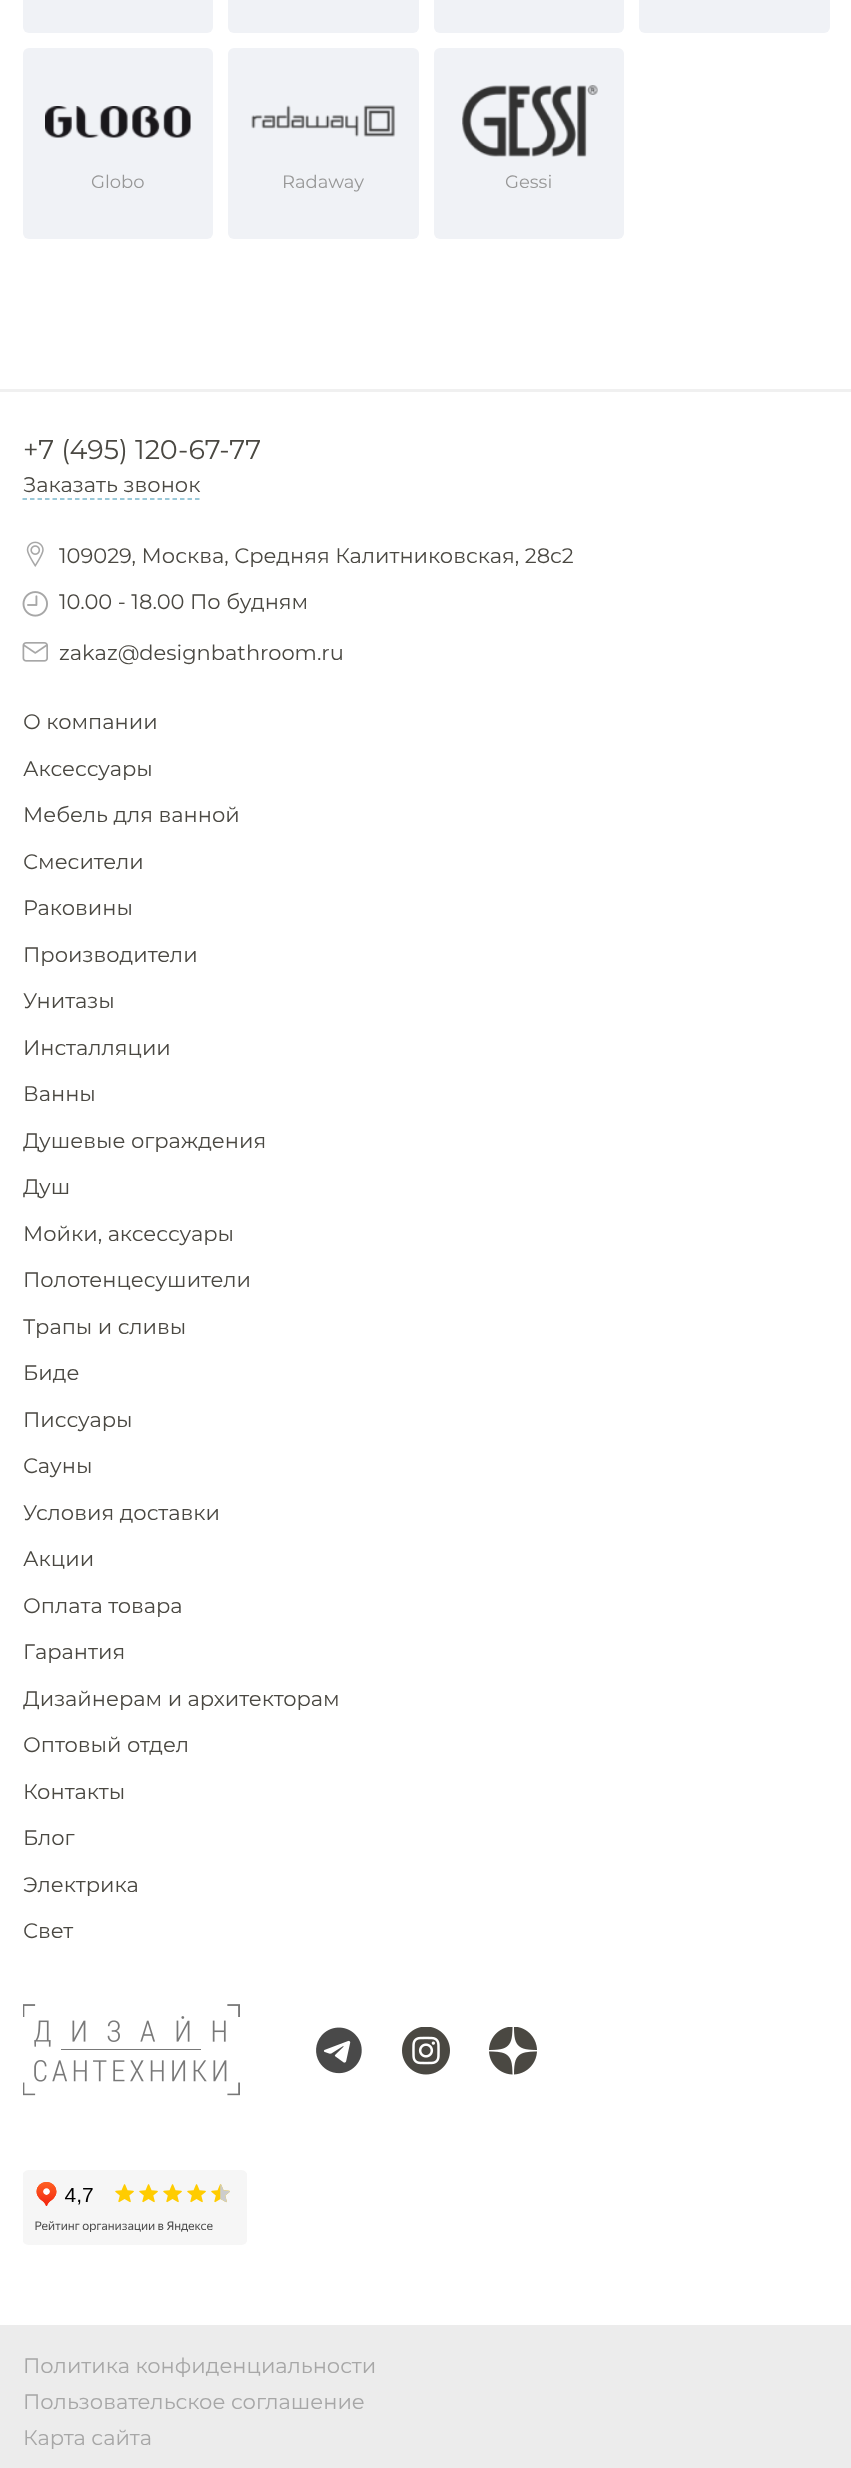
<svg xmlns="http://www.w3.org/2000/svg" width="851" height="2468">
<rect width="100%" height="100%" fill="#fff"/>
<rect x="23" y="-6" width="190" height="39" rx="6" fill="#f0f2f6"/>
<rect x="228" y="-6" width="191" height="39" rx="6" fill="#f0f2f6"/>
<rect x="434" y="-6" width="190" height="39" rx="6" fill="#f0f2f6"/>
<rect x="639" y="-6" width="191" height="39" rx="6" fill="#f0f2f6"/>
<rect x="23" y="48" width="190" height="191" rx="6" fill="#f0f2f6"/>
<image x="45" y="106" width="146" height="32" href="media/1.png"/>
<text x="91" y="188" style="font-family:Montserrat;font-size:18px;fill:#979797">Globo</text>
<rect x="228" y="48" width="191" height="191" rx="6" fill="#f0f2f6"/>
<image x="251" y="105" width="145" height="32" href="media/2.png"/>
<text x="282" y="188" style="font-family:Montserrat;font-size:18px;fill:#979797">Radaway</text>
<rect x="434" y="48" width="190" height="191" rx="6" fill="#f0f2f6"/>
<image x="462" y="85" width="136" height="72" href="media/3.png"/>
<text x="505" y="188" style="font-family:Montserrat;font-size:18px;fill:#979797">Gessi</text>
<rect y="389" width="851" height="3" fill="#f0f0f0"/>
<text x="23" y="459" style="font-family:Montserrat;font-size:27px;fill:#4a4842">+7 (495) 120-67-77</text>
<text x="23" y="492" style="font-family:Montserrat;font-size:21px;fill:#4a4842">Заказать звонок</text>
<path d="M22.5 499h177" fill="none" stroke="#7ab6cb" stroke-width="1.5" stroke-dasharray="4.5 3"/>
<image x="26" y="541" width="18" height="26" href="media/4.png"/>
<text x="59" y="563" style="font-family:Montserrat;font-size:21px;fill:#4a4842">109029, Москва, Средняя Калитниковская, 28с2</text>
<image x="22" y="591" width="26" height="26" href="media/5.png"/>
<text x="59" y="609" style="font-family:Montserrat;font-size:21px;fill:#4a4842">10.00 - 18.00 По будням</text>
<image x="22" y="642" width="26" height="20" href="media/6.png"/>
<text x="59" y="660" style="font-family:Montserrat;font-size:21px;fill:#4a4842">zakaz@designbathroom.ru</text>
<text x="23" y="729" style="font-family:Montserrat;font-size:21px;fill:#4a4842">О компании</text>
<text x="23" y="776" style="font-family:Montserrat;font-size:21px;fill:#4a4842">Аксессуары</text>
<text x="23" y="822" style="font-family:Montserrat;font-size:21px;fill:#4a4842">Мебель для ванной</text>
<text x="23" y="869" style="font-family:Montserrat;font-size:21px;fill:#4a4842">Смесители</text>
<text x="23" y="915" style="font-family:Montserrat;font-size:21px;fill:#4a4842">Раковины</text>
<text x="23" y="962" style="font-family:Montserrat;font-size:21px;fill:#4a4842">Производители</text>
<text x="23" y="1008" style="font-family:Montserrat;font-size:21px;fill:#4a4842">Унитазы</text>
<text x="23" y="1055" style="font-family:Montserrat;font-size:21px;fill:#4a4842">Инсталляции</text>
<text x="23" y="1101" style="font-family:Montserrat;font-size:21px;fill:#4a4842">Ванны</text>
<text x="23" y="1148" style="font-family:Montserrat;font-size:21px;fill:#4a4842">Душевые ограждения</text>
<text x="23" y="1194" style="font-family:Montserrat;font-size:21px;fill:#4a4842">Душ</text>
<text x="23" y="1241" style="font-family:Montserrat;font-size:21px;fill:#4a4842">Мойки, аксессуары</text>
<text x="23" y="1287" style="font-family:Montserrat;font-size:21px;fill:#4a4842">Полотенцесушители</text>
<text x="23" y="1334" style="font-family:Montserrat;font-size:21px;fill:#4a4842">Трапы и сливы</text>
<text x="23" y="1380" style="font-family:Montserrat;font-size:21px;fill:#4a4842">Биде</text>
<text x="23" y="1427" style="font-family:Montserrat;font-size:21px;fill:#4a4842">Писсуары</text>
<text x="23" y="1473" style="font-family:Montserrat;font-size:21px;fill:#4a4842">Сауны</text>
<text x="23" y="1520" style="font-family:Montserrat;font-size:21px;fill:#4a4842">Условия доставки</text>
<text x="23" y="1566" style="font-family:Montserrat;font-size:21px;fill:#4a4842">Акции</text>
<text x="23" y="1613" style="font-family:Montserrat;font-size:21px;fill:#4a4842">Оплата товара</text>
<text x="23" y="1659" style="font-family:Montserrat;font-size:21px;fill:#4a4842">Гарантия</text>
<text x="23" y="1706" style="font-family:Montserrat;font-size:21px;fill:#4a4842">Дизайнерам и архитекторам</text>
<text x="23" y="1752" style="font-family:Montserrat;font-size:21px;fill:#4a4842">Оптовый отдел</text>
<text x="23" y="1799" style="font-family:Montserrat;font-size:21px;fill:#4a4842">Контакты</text>
<text x="23" y="1845" style="font-family:Montserrat;font-size:21px;fill:#4a4842">Блог</text>
<text x="23" y="1892" style="font-family:Montserrat;font-size:21px;fill:#4a4842">Электрика</text>
<text x="23" y="1938" style="font-family:Montserrat;font-size:21px;fill:#4a4842">Свет</text>
<image x="23" y="2004" width="217" height="92" href="media/7.png"/>
<image x="316" y="2027" width="46" height="47" href="media/8.png"/>
<image x="402" y="2027" width="48" height="48" href="media/9.png"/>
<image x="489" y="2027" width="48" height="48" href="media/10.png"/>
<image x="23" y="2170" width="224" height="75" href="media/11.png"/>
<rect y="2325" width="851" height="143" fill="#ececec"/>
<text x="23" y="2373" style="font-family:Montserrat;font-size:21px;fill:#a7a7a7">Политика конфиденциальности</text>
<text x="23" y="2409" style="font-family:Montserrat;font-size:21px;fill:#a7a7a7">Пользовательское соглашение</text>
<text x="23" y="2445" style="font-family:Montserrat;font-size:21px;fill:#a7a7a7">Карта сайта</text>
</svg>
